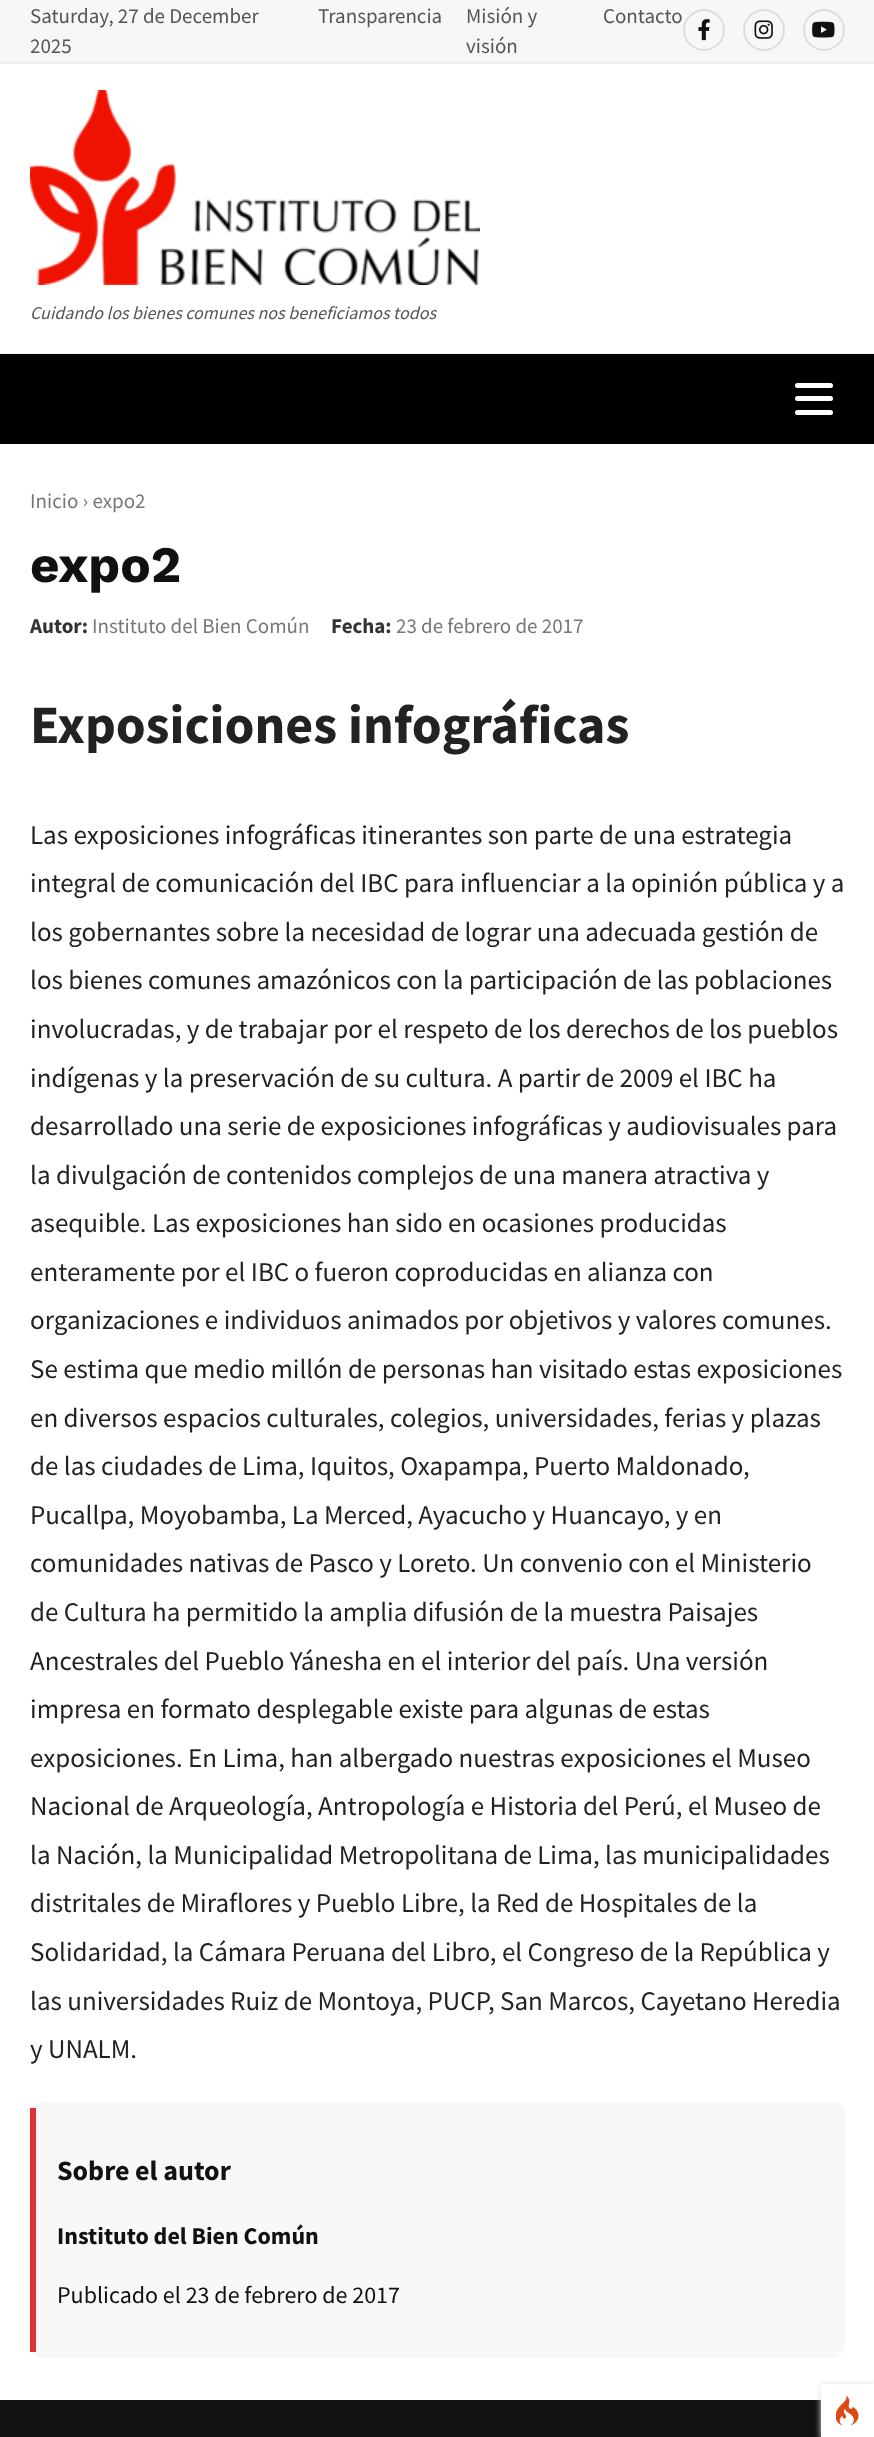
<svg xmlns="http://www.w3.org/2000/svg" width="874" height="2437">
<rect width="100%" height="100%" fill="#fff"/>
<rect width="874" height="62" fill="#f7f7f7"/>
<rect y="62" width="874" height="2" fill="#eee"/>
<text x="30" y="23" style="font-family:Source Sans Pro;font-size:21px;fill:#555">Saturday, 27 de December</text>
<text x="30" y="53" style="font-family:Source Sans Pro;font-size:21px;fill:#555">2025</text>
<text x="318" y="23" style="font-family:Source Sans Pro;font-size:21px;fill:#555">Transparencia</text>
<text x="466" y="23" style="font-family:Source Sans Pro;font-size:21px;fill:#555">Misión y</text>
<text x="466" y="53" style="font-family:Source Sans Pro;font-size:21px;fill:#555">visión</text>
<text x="603" y="23" style="font-family:Source Sans Pro;font-size:21px;fill:#555">Contacto</text>
<circle cx="704" cy="30" r="20" fill="none" stroke="#ddd" stroke-width="2"/>
<image x="698" y="19" width="12" height="22" href="media/1.png"/>
<circle cx="764" cy="30" r="20" fill="none" stroke="#ddd" stroke-width="2"/>
<image x="754" y="20" width="19" height="19" href="media/2.png"/>
<circle cx="824" cy="30" r="20" fill="none" stroke="#ddd" stroke-width="2"/>
<image x="812" y="21" width="23" height="17" href="media/3.png"/>
<rect y="353" width="874" height="1" fill="#eee"/>
<image x="30" y="90" width="450" height="195" href="media/4.png"/>
<text x="30" y="319" style="font-family:Source Sans Pro;font-size:18px;font-style:italic;fill:#555">Cuidando los bienes comunes nos beneficiamos todos</text>
<rect y="354" width="874" height="90" fill="#000"/>
<rect x="795" y="383" width="38" height="5" rx="2.5" fill="#fff"/>
<rect x="795" y="396" width="38" height="5" rx="2.5" fill="#fff"/>
<rect x="795" y="410" width="38" height="5" rx="2.5" fill="#fff"/>
<text x="30" y="508" style="font-family:Source Sans Pro;font-size:21px;fill:#777">Inicio › expo2</text>
<text x="30" y="582" style="font-family:Work Sans;font-size:51px;font-weight:bold;fill:#111">expo2</text>
<text x="30" y="633" style="font-family:Source Sans Pro;font-size:21px;font-weight:bold;fill:#333">Autor:</text>
<text x="92" y="633" style="font-family:Source Sans Pro;font-size:21px;fill:#777">Instituto del Bien Común</text>
<text x="331" y="633" style="font-family:Source Sans Pro;font-size:21px;font-weight:bold;fill:#333">Fecha:</text>
<text x="396" y="633" style="font-family:Source Sans Pro;font-size:21px;fill:#777">23 de febrero de 2017</text>
<text x="30" y="743" style="font-family:Source Sans Pro;font-size:54px;font-weight:bold;fill:#222">Exposiciones infográficas</text>
<text x="30" y="844" style="font-family:Source Sans Pro;font-size:27px;fill:#222">Las exposiciones infográficas itinerantes son parte de una estrategia</text>
<text x="30" y="892" style="font-family:Source Sans Pro;font-size:27px;fill:#222">integral de comunicación del IBC para influenciar a la opinión pública y a</text>
<text x="30" y="941" style="font-family:Source Sans Pro;font-size:27px;fill:#222">los gobernantes sobre la necesidad de lograr una adecuada gestión de</text>
<text x="30" y="989" style="font-family:Source Sans Pro;font-size:27px;fill:#222">los bienes comunes amazónicos con la participación de las poblaciones</text>
<text x="30" y="1038" style="font-family:Source Sans Pro;font-size:27px;fill:#222">involucradas, y de trabajar por el respeto de los derechos de los pueblos</text>
<text x="30" y="1087" style="font-family:Source Sans Pro;font-size:27px;fill:#222">indígenas y la preservación de su cultura. A partir de 2009 el IBC ha</text>
<text x="30" y="1135" style="font-family:Source Sans Pro;font-size:27px;fill:#222">desarrollado una serie de exposiciones infográficas y audiovisuales para</text>
<text x="30" y="1184" style="font-family:Source Sans Pro;font-size:27px;fill:#222">la divulgación de contenidos complejos de una manera atractiva y</text>
<text x="30" y="1232" style="font-family:Source Sans Pro;font-size:27px;fill:#222">asequible. Las exposiciones han sido en ocasiones producidas</text>
<text x="30" y="1281" style="font-family:Source Sans Pro;font-size:27px;fill:#222">enteramente por el IBC o fueron coproducidas en alianza con</text>
<text x="30" y="1329" style="font-family:Source Sans Pro;font-size:27px;fill:#222">organizaciones e individuos animados por objetivos y valores comunes.</text>
<text x="30" y="1378" style="font-family:Source Sans Pro;font-size:27px;fill:#222">Se estima que medio millón de personas han visitado estas exposiciones</text>
<text x="30" y="1427" style="font-family:Source Sans Pro;font-size:27px;fill:#222">en diversos espacios culturales, colegios, universidades, ferias y plazas</text>
<text x="30" y="1475" style="font-family:Source Sans Pro;font-size:27px;fill:#222">de las ciudades de Lima, Iquitos, Oxapampa, Puerto Maldonado,</text>
<text x="30" y="1524" style="font-family:Source Sans Pro;font-size:27px;fill:#222">Pucallpa, Moyobamba, La Merced, Ayacucho y Huancayo, y en</text>
<text x="30" y="1572" style="font-family:Source Sans Pro;font-size:27px;fill:#222">comunidades nativas de Pasco y Loreto. Un convenio con el Ministerio</text>
<text x="30" y="1621" style="font-family:Source Sans Pro;font-size:27px;fill:#222">de Cultura ha permitido la amplia difusión de la muestra Paisajes</text>
<text x="30" y="1670" style="font-family:Source Sans Pro;font-size:27px;fill:#222">Ancestrales del Pueblo Yánesha en el interior del país. Una versión</text>
<text x="30" y="1718" style="font-family:Source Sans Pro;font-size:27px;fill:#222">impresa en formato desplegable existe para algunas de estas</text>
<text x="30" y="1767" style="font-family:Source Sans Pro;font-size:27px;fill:#222">exposiciones. En Lima, han albergado nuestras exposiciones el Museo</text>
<text x="30" y="1815" style="font-family:Source Sans Pro;font-size:27px;fill:#222">Nacional de Arqueología, Antropología e Historia del Perú, el Museo de</text>
<text x="30" y="1864" style="font-family:Source Sans Pro;font-size:27px;fill:#222">la Nación, la Municipalidad Metropolitana de Lima, las municipalidades</text>
<text x="30" y="1912" style="font-family:Source Sans Pro;font-size:27px;fill:#222">distritales de Miraflores y Pueblo Libre, la Red de Hospitales de la</text>
<text x="30" y="1961" style="font-family:Source Sans Pro;font-size:27px;fill:#222">Solidaridad, la Cámara Peruana del Libro, el Congreso de la República y</text>
<text x="30" y="2010" style="font-family:Source Sans Pro;font-size:27px;fill:#222">las universidades Ruiz de Montoya, PUCP, San Marcos, Cayetano Heredia</text>
<text x="30" y="2058" style="font-family:Source Sans Pro;font-size:27px;fill:#222">y UNALM.</text>
<rect x="30" y="2102" width="815" height="256" rx="12" fill="#f8f8f8"/>
<rect x="30" y="2108" width="6" height="244" fill="#d33"/>
<text x="57" y="2180" style="font-family:Source Sans Pro;font-size:28px;font-weight:bold;fill:#111">Sobre el autor</text>
<text x="57" y="2244" style="font-family:Source Sans Pro;font-size:24px;font-weight:bold;fill:#111">Instituto del Bien Común</text>
<text x="57" y="2303" style="font-family:Source Sans Pro;font-size:24px;fill:#111">Publicado el 23 de febrero de 2017</text>
<rect y="2400" width="821" height="37" fill="#111"/>
<rect x="821" y="2384" width="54" height="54" fill="#dfdfdf" filter="blur(3px)"/>
<rect x="821" y="2384" width="53" height="53" fill="#fff"/>
<image x="836" y="2396" width="23" height="30" href="media/5.png"/>
</svg>
